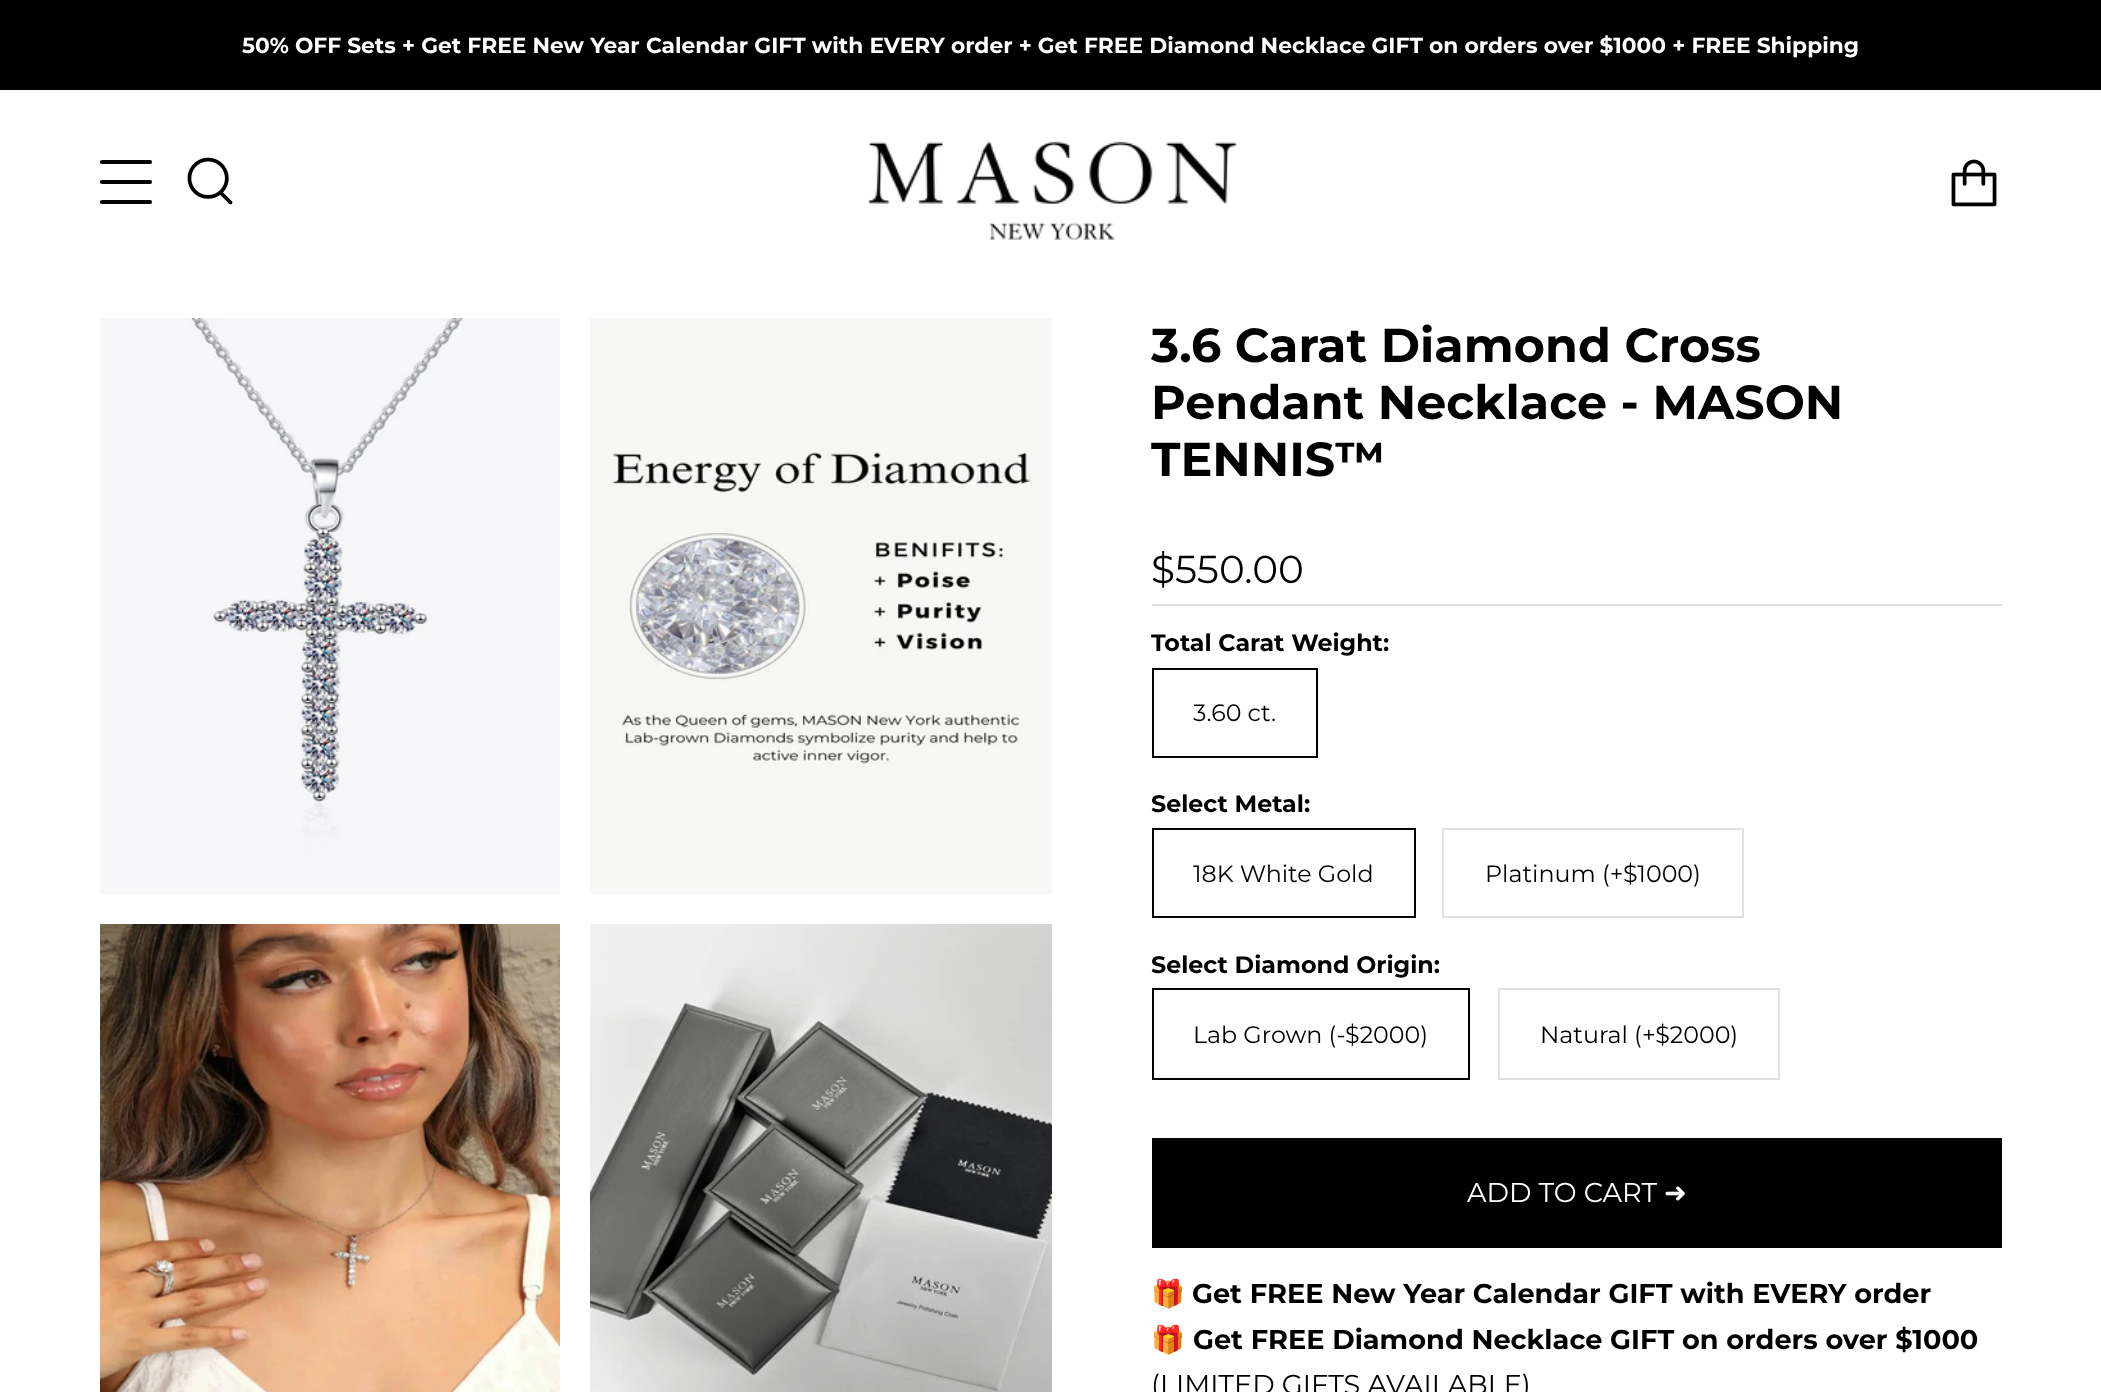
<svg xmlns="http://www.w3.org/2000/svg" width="2101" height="1392">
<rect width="100%" height="100%" fill="#fff"/>
<rect width="2101" height="90" fill="#000"/>
<text x="242" y="53" style="font-family:Montserrat;font-size:21.75px;font-weight:bold;fill:#fff">50% OFF Sets + Get FREE New Year Calendar GIFT with EVERY order + Get FREE Diamond Necklace GIFT on orders over $1000 + FREE Shipping</text>
<rect x="100" y="160" width="52" height="4" rx="2" fill="#000"/>
<rect x="100" y="180" width="52" height="4" rx="2" fill="#000"/>
<rect x="100" y="200" width="52" height="4" rx="2" fill="#000"/>
<image x="187" y="157" width="46" height="48" href="media/1.png"/>
<image x="867" y="141" width="370" height="99" href="media/2.png"/>
<image x="1951" y="159" width="46" height="48" href="media/3.png"/>
<image x="100" y="318" width="460" height="576" href="media/4.png"/>
<image x="590" y="318" width="462" height="576" href="media/5.png"/>
<image x="100" y="924" width="460" height="468" href="media/6.png"/>
<image x="590" y="924" width="462" height="468" href="media/7.png"/>
<text x="1151" y="362" style="font-family:Montserrat;font-size:47.6px;font-weight:bold;fill:#000">3.6 Carat Diamond Cross</text>
<text x="1151" y="419" style="font-family:Montserrat;font-size:47.6px;font-weight:bold;fill:#000">Pendant Necklace - MASON</text>
<text x="1151" y="476" style="font-family:Montserrat;font-size:47.6px;font-weight:bold;fill:#000">TENNIS™</text>
<text x="1151" y="583" style="font-family:Montserrat;font-size:39px;fill:#000">$550.00</text>
<rect x="1152" y="604" width="850" height="2" fill="#e1e1e1"/>
<text x="1151" y="651" style="font-family:Montserrat;font-size:23.75px;font-weight:bold;fill:#000">Total Carat Weight:</text>
<rect x="1153" y="669" width="164" height="88" fill="none" stroke="#000" stroke-width="2"/>
<text x="1193" y="721" style="font-family:Montserrat;font-size:23.75px;fill:#000">3.60 ct.</text>
<text x="1151" y="812" style="font-family:Montserrat;font-size:23.75px;font-weight:bold;fill:#000">Select Metal:</text>
<rect x="1153" y="829" width="262" height="88" fill="none" stroke="#000" stroke-width="2"/>
<text x="1193" y="882" style="font-family:Montserrat;font-size:23.75px;fill:#000">18K White Gold</text>
<rect x="1443" y="829" width="300" height="88" fill="none" stroke="#e1e1e1" stroke-width="2"/>
<text x="1485" y="882" style="font-family:Montserrat;font-size:23.75px;fill:#000">Platinum (+$1000)</text>
<text x="1151" y="973" style="font-family:Montserrat;font-size:23.75px;font-weight:bold;fill:#000">Select Diamond Origin:</text>
<rect x="1153" y="989" width="316" height="90" fill="none" stroke="#000" stroke-width="2"/>
<text x="1193" y="1043" style="font-family:Montserrat;font-size:23.75px;fill:#000">Lab Grown (-$2000)</text>
<rect x="1499" y="989" width="280" height="90" fill="none" stroke="#e1e1e1" stroke-width="2"/>
<text x="1540" y="1043" style="font-family:Montserrat;font-size:23.75px;fill:#000">Natural (+$2000)</text>
<rect x="1152" y="1138" width="850" height="110" fill="#000"/>
<text x="1467" y="1202" style="font-family:Montserrat;font-size:27.2px;fill:#fff">ADD TO CART</text>
<text x="1664" y="1202" style="font-family:DejaVu Sans;font-size:27.2px;fill:#fff">➜</text>
<text x="1151" y="1303" style="font-family:Noto Color Emoji;font-size:27.2px;fill:#000">🎁</text>
<text x="1192" y="1303" style="font-family:Montserrat;font-size:27.2px;font-weight:bold;fill:#000">Get FREE New Year Calendar GIFT with EVERY order</text>
<text x="1151" y="1349" style="font-family:Noto Color Emoji;font-size:27.2px;fill:#000">🎁</text>
<text x="1193" y="1349" style="font-family:Montserrat;font-size:27.2px;font-weight:bold;fill:#000">Get FREE Diamond Necklace GIFT on orders over $1000</text>
<text x="1151" y="1394" style="font-family:Montserrat;font-size:27.2px;fill:#000">(LIMITED GIFTS AVAILABLE)</text>
</svg>
